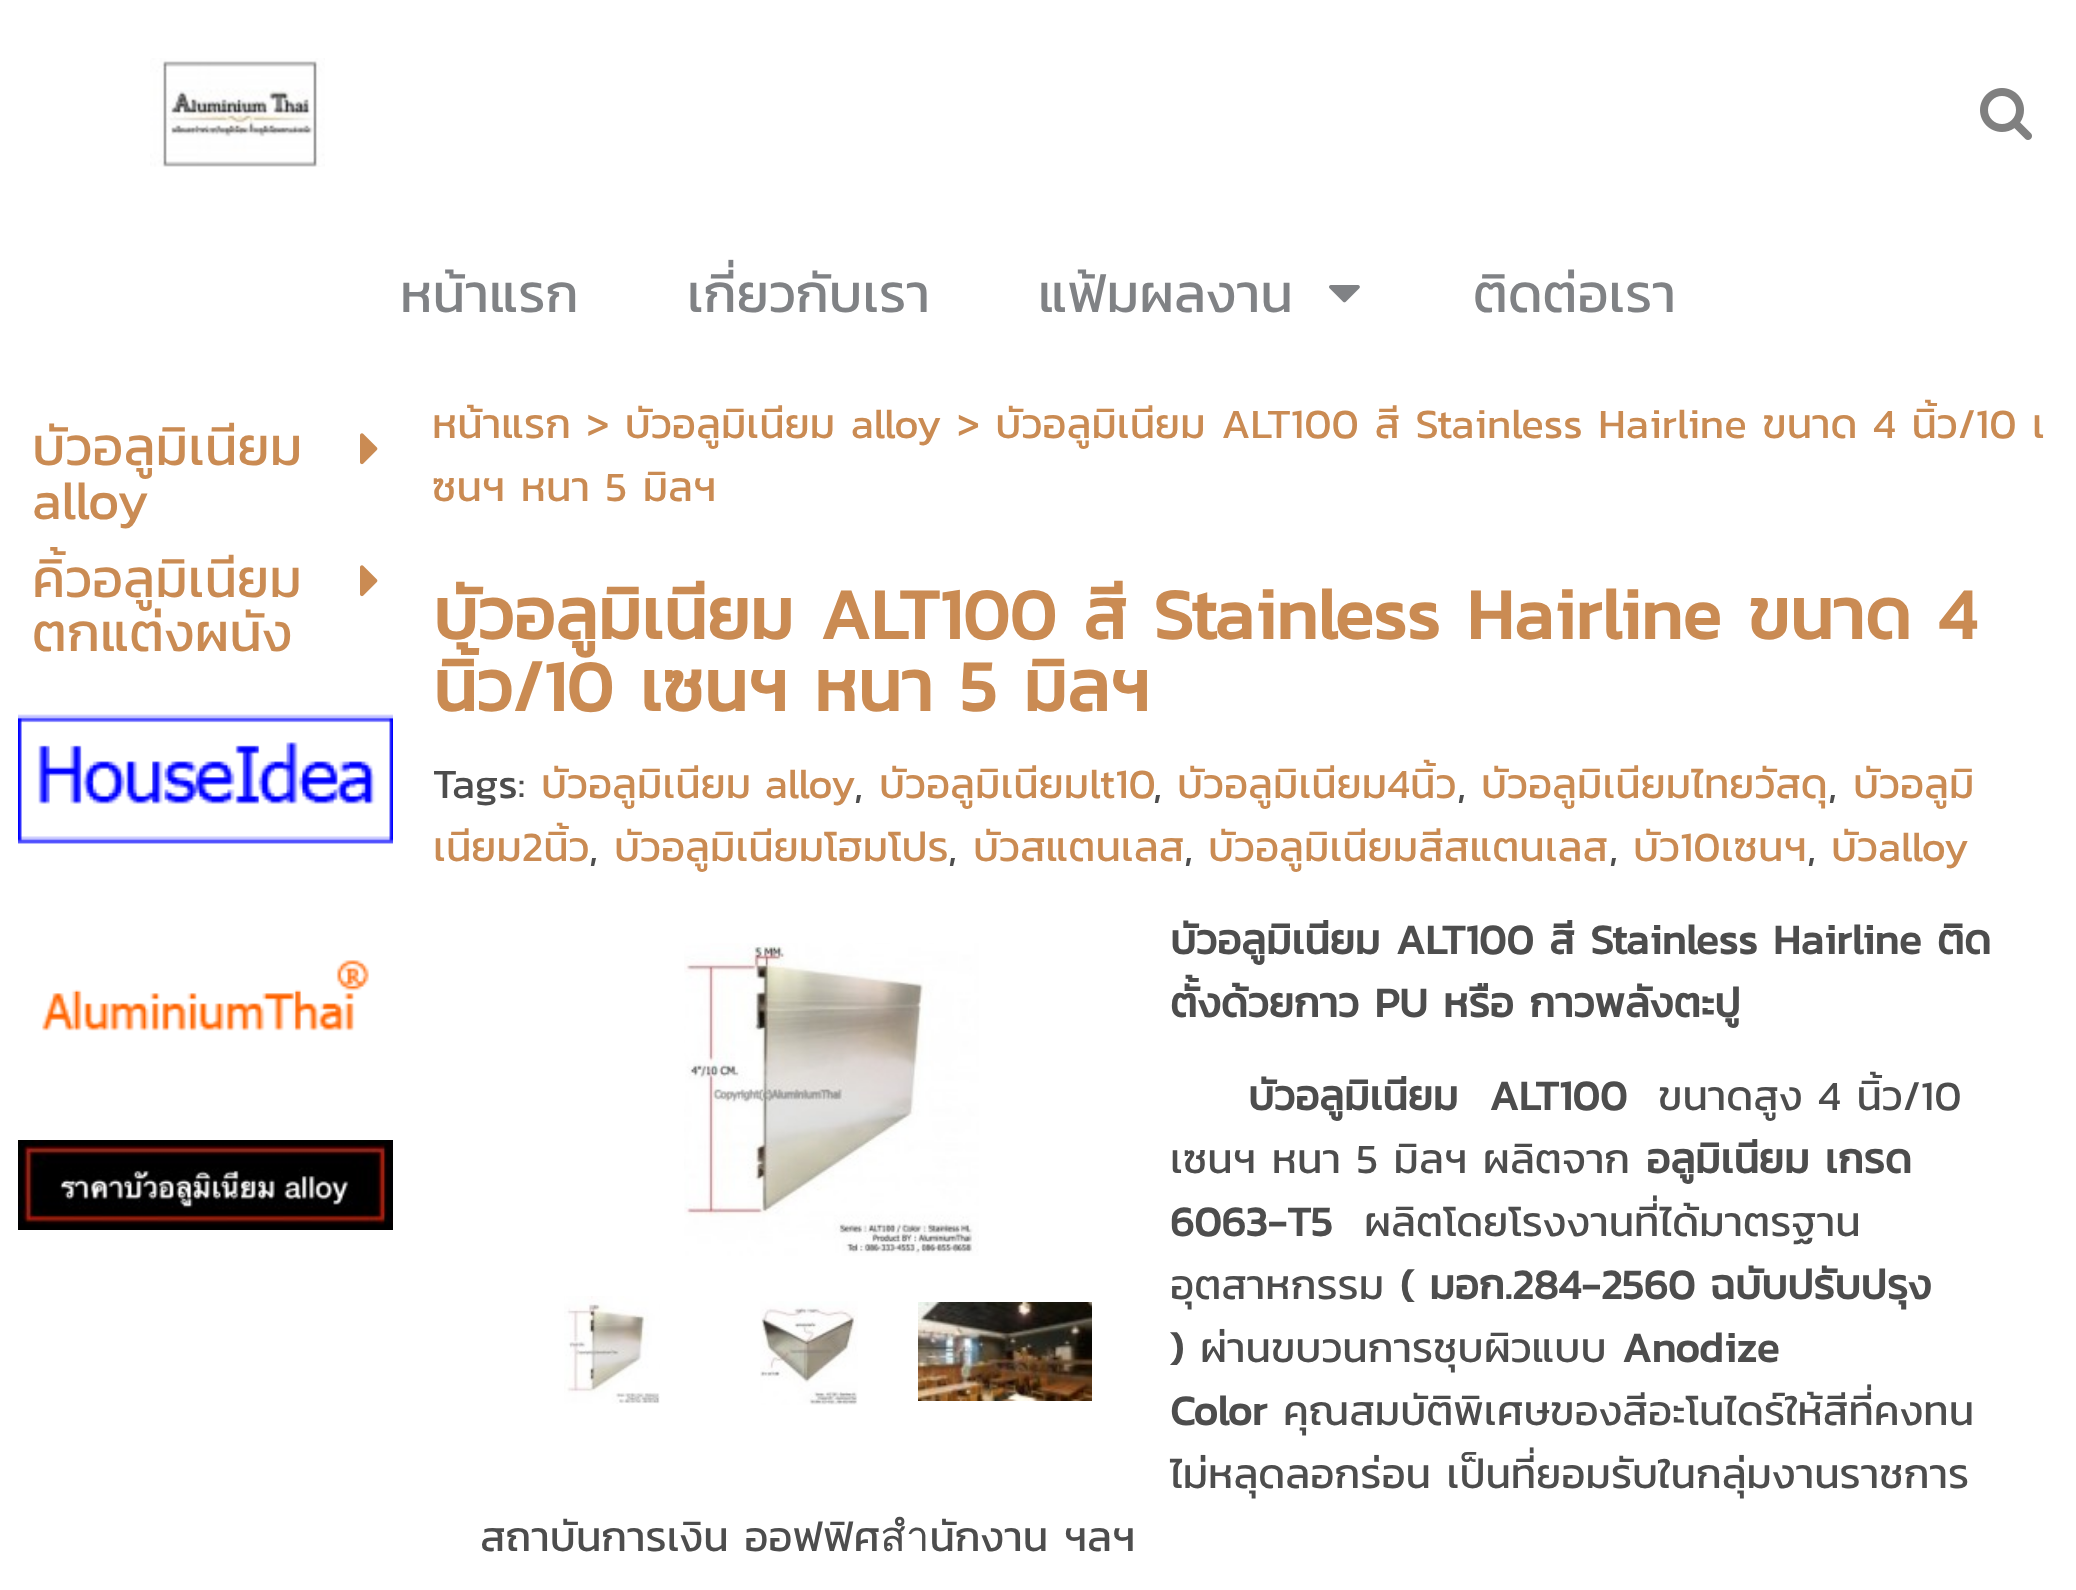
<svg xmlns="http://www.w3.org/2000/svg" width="2076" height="1590">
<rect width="100%" height="100%" fill="#fff"/>
<image x="150" y="58" width="175" height="109" href="media/1.png"/>
<image x="1980" y="88" width="52" height="52" href="media/2.png"/>
<text x="400" y="312" style="font-family:Kanit;font-size:54px;fill:#808285">หน้าแรก</text>
<text x="687" y="312" style="font-family:Kanit;font-size:54px;fill:#808285">เกี่ยวกับเรา</text>
<text x="1038" y="312" style="font-family:Kanit;font-size:54px;fill:#808285">แฟ้มผลงาน</text>
<image x="1329" y="285" width="31" height="18" href="media/3.png"/>
<text x="1473" y="312" style="font-family:Kanit;font-size:54px;fill:#808285">ติดต่อเรา</text>
<text x="32" y="465" style="font-family:Kanit;font-size:54px;fill:#ca8b53">บัวอลูมิเนียม</text>
<text x="32" y="519" style="font-family:Kanit;font-size:54px;fill:#ca8b53">alloy</text>
<image x="360" y="433" width="18" height="32" href="media/4.png"/>
<text x="32" y="597" style="font-family:Kanit;font-size:54px;fill:#ca8b53">คิ้วอลูมิเนียม</text>
<text x="32" y="651" style="font-family:Kanit;font-size:54px;fill:#ca8b53">ตกแต่งผนัง</text>
<image x="360" y="565" width="18" height="32" href="media/4.png"/>
<image x="18" y="714" width="375" height="130" href="media/5.png"/>
<image x="42" y="960" width="327" height="71" href="media/6.png"/>
<image x="18" y="1140" width="375" height="90" href="media/7.png"/>
<text x="432" y="438" style="font-family:Kanit;font-size:42px;fill:#ca8b53">หน้าแรก &gt; บัวอลูมิเนียม alloy &gt; บัวอลูมิเนียม ALT100 สี Stainless Hairline ขนาด 4 นิ้ว/10 เ</text>
<text x="432" y="501" style="font-family:Kanit;font-size:42px;fill:#ca8b53">ซนฯ หนา 5 มิลฯ</text>
<text x="433" y="639" style="font-family:Kanit;font-size:72px;font-weight:bold;fill:#ca8b53">บัวอลูมิเนียม ALT100 สี Stainless Hairline ขนาด 4</text>
<text x="433" y="711" style="font-family:Kanit;font-size:72px;font-weight:bold;fill:#ca8b53">นิ้ว/10 เซนฯ หนา 5 มิลฯ</text>
<text x="433" y="798" style="font-family:Kanit;font-size:42px;fill:#4d4d4d">Tags:</text>
<text x="541" y="798" word-spacing="-2" style="font-family:Kanit;font-size:42px;fill:#ca8b53">บัวอลูมิเนียม alloy</text>
<text x="854" y="798" style="font-family:Kanit;font-size:42px;fill:#4d4d4d">,</text>
<text x="879" y="798" style="font-family:Kanit;font-size:42px;fill:#ca8b53">บัวอลูมิเนียมlt10</text>
<text x="1153" y="798" style="font-family:Kanit;font-size:42px;fill:#4d4d4d">,</text>
<text x="1177" y="798" style="font-family:Kanit;font-size:42px;fill:#ca8b53">บัวอลูมิเนียม4นิ้ว</text>
<text x="1457" y="798" style="font-family:Kanit;font-size:42px;fill:#4d4d4d">,</text>
<text x="1481" y="798" style="font-family:Kanit;font-size:42px;fill:#ca8b53">บัวอลูมิเนียมไทยวัสดุ</text>
<text x="1828" y="798" style="font-family:Kanit;font-size:42px;fill:#4d4d4d">,</text>
<text x="1853" y="798" style="font-family:Kanit;font-size:42px;fill:#ca8b53">บัวอลูมิ</text>
<text x="433" y="861" style="font-family:Kanit;font-size:42px;fill:#ca8b53">เนียม2นิ้ว</text>
<text x="589" y="861" style="font-family:Kanit;font-size:42px;fill:#4d4d4d">,</text>
<text x="614" y="861" style="font-family:Kanit;font-size:42px;fill:#ca8b53">บัวอลูมิเนียมโฮมโปร</text>
<text x="948" y="861" style="font-family:Kanit;font-size:42px;fill:#4d4d4d">,</text>
<text x="973" y="861" style="font-family:Kanit;font-size:42px;fill:#ca8b53">บัวสแตนเลส</text>
<text x="1184" y="861" style="font-family:Kanit;font-size:42px;fill:#4d4d4d">,</text>
<text x="1208" y="861" style="font-family:Kanit;font-size:42px;fill:#ca8b53">บัวอลูมิเนียมสีสแตนเลส</text>
<text x="1609" y="861" style="font-family:Kanit;font-size:42px;fill:#4d4d4d">,</text>
<text x="1633" y="861" style="font-family:Kanit;font-size:42px;fill:#ca8b53">บัว10เซนฯ</text>
<text x="1807" y="861" style="font-family:Kanit;font-size:42px;fill:#4d4d4d">,</text>
<text x="1831" y="861" style="font-family:Kanit;font-size:42px;fill:#ca8b53">บัวalloy</text>
<text x="1170" y="954" style="font-family:Kanit;font-size:42px;font-weight:bold;fill:#4d4d4d">บัวอลูมิเนียม ALT100 สี Stainless Hairline ติด</text>
<text x="1170" y="1017" style="font-family:Kanit;font-size:42px;font-weight:bold;fill:#4d4d4d">ตั้งด้วยกาว PU หรือ กาวพลังตะปู</text>
<text x="1248" y="1110" style="font-family:Kanit;font-size:42px;font-weight:bold;fill:#4d4d4d" xml:space="preserve">บัวอลูมิเนียม  ALT100</text>
<text x="1658" y="1110" style="font-family:Kanit;font-size:42px;fill:#4d4d4d">ขนาดสูง 4 นิ้ว/10</text>
<text x="1170" y="1173" style="font-family:Kanit;font-size:42px;fill:#4d4d4d">เซนฯ หนา 5 มิลฯ ผลิตจาก</text>
<text x="1646" y="1173" style="font-family:Kanit;font-size:42px;font-weight:bold;fill:#4d4d4d">อลูมิเนียม เกรด</text>
<text x="1170" y="1236" style="font-family:Kanit;font-size:42px;font-weight:bold;fill:#4d4d4d">6063-T5</text>
<text x="1364" y="1236" style="font-family:Kanit;font-size:42px;fill:#4d4d4d">ผลิตโดยโรงงานที่ได้มาตรฐาน</text>
<text x="1170" y="1299" style="font-family:Kanit;font-size:42px;fill:#4d4d4d">อุตสาหกรรม</text>
<text x="1400" y="1299" style="font-family:Kanit;font-size:42px;font-weight:bold;fill:#4d4d4d">( มอก.284-2560 ฉบับปรับปรุง</text>
<text x="1170" y="1362" style="font-family:Kanit;font-size:42px;font-weight:bold;fill:#4d4d4d">)</text>
<text x="1200" y="1362" style="font-family:Kanit;font-size:42px;fill:#4d4d4d">ผ่านขบวนการชุบผิวแบบ</text>
<text x="1622" y="1362" style="font-family:Kanit;font-size:42px;font-weight:bold;fill:#4d4d4d">Anodize</text>
<text x="1170" y="1425" style="font-family:Kanit;font-size:42px;font-weight:bold;fill:#4d4d4d">Color</text>
<text x="1283" y="1425" style="font-family:Kanit;font-size:42px;fill:#4d4d4d">คุณสมบัติพิเศษของสีอะโนไดร์ให้สีที่คงทน</text>
<text x="1170" y="1488" style="font-family:Kanit;font-size:42px;fill:#4d4d4d">ไม่หลุดลอกร่อน เป็นที่ยอมรับในกลุ่มงานราชการ</text>
<text x="480" y="1551" style="font-family:Kanit;font-size:42px;fill:#4d4d4d">สถาบันการเงิน ออฟฟิศสำนักงาน ฯลฯ</text>
<image x="684" y="943" width="295" height="313" href="media/8.png"/>
<image x="564" y="1296" width="96" height="108" href="media/9.png"/>
<image x="760" y="1301" width="98" height="104" href="media/10.png"/>
<image x="918" y="1302" width="174" height="99" href="media/11.png"/>
</svg>
